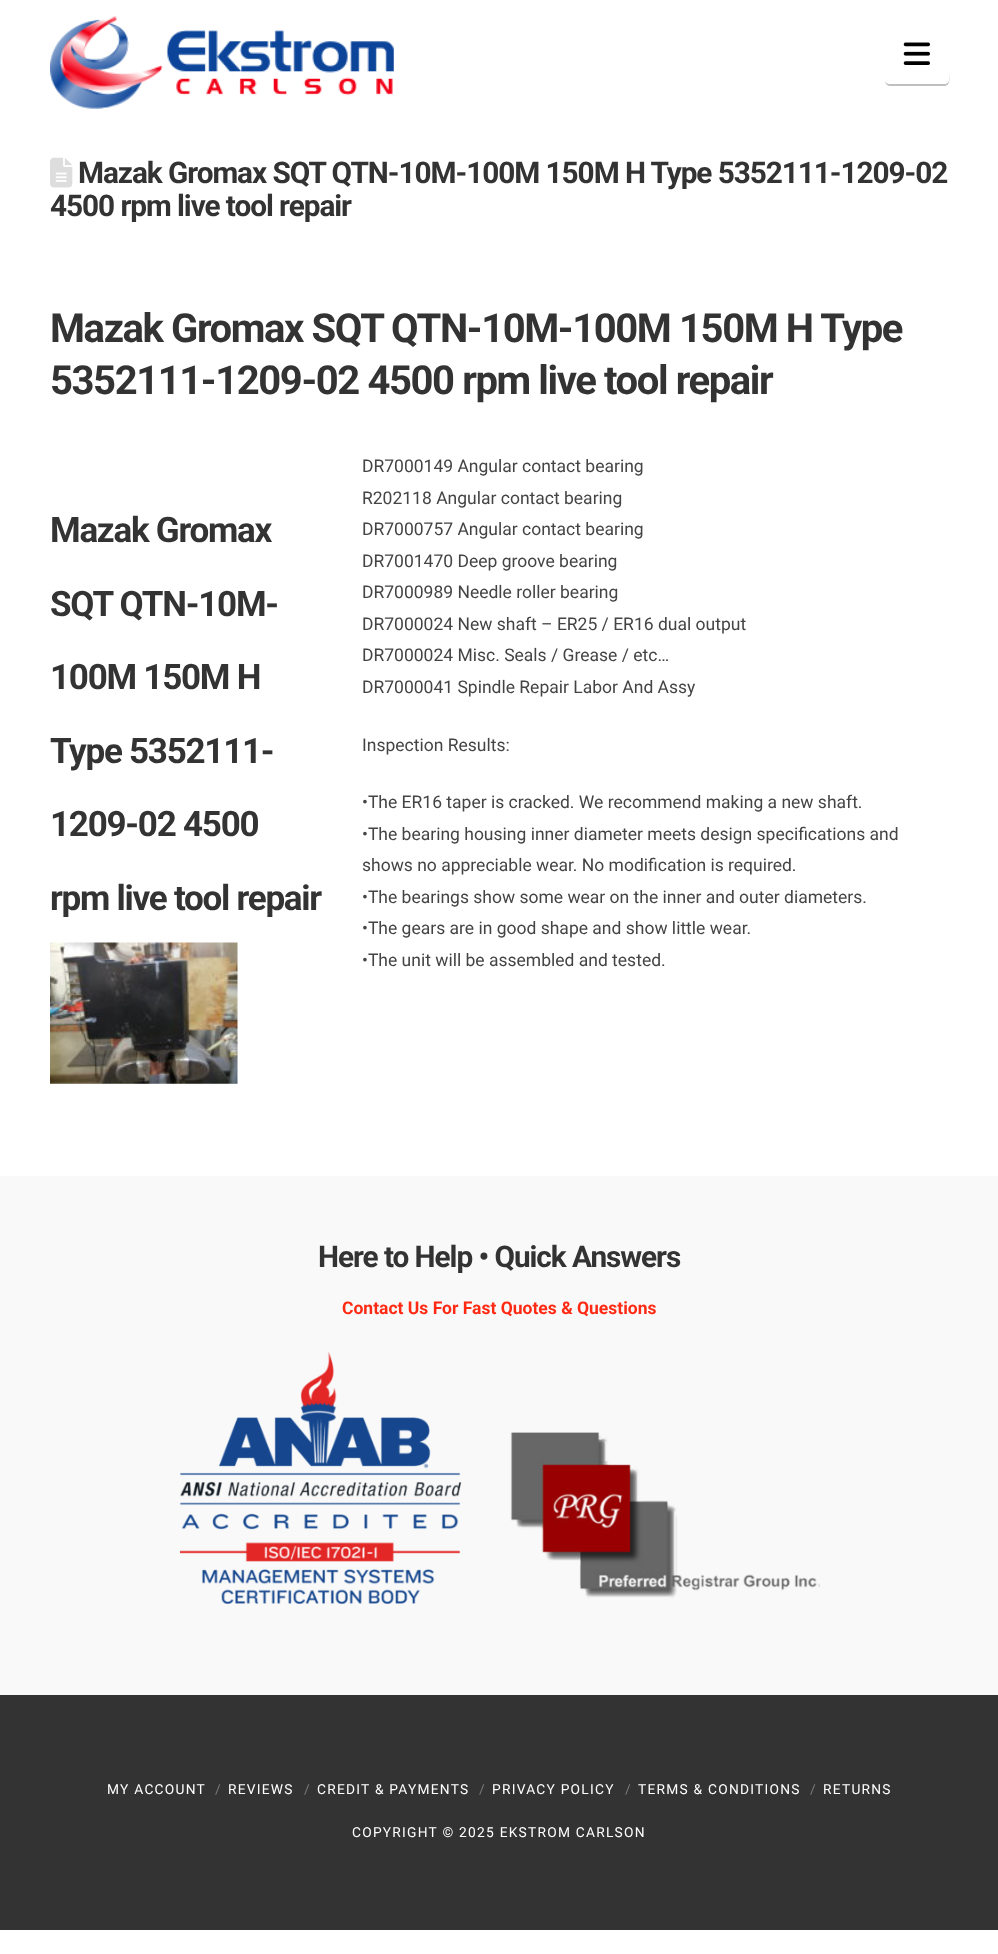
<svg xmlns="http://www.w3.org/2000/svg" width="998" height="1954">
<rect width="100%" height="100%" fill="#fff"/>
<image x="50" y="16" width="344" height="93" href="media/1.png"/>
<path d="M885 79c0 3 1 7 5 7h55c6-1 4-9 4-13v-42v48c0 3-2 5-5 5h-54c-3 0-5-2-5-5z" fill="#bfbfbf"/>
<rect x="885" y="25" width="64" height="59" rx="5" fill="#fff"/>
<image x="903" y="42" width="27" height="23" href="media/2.png"/>
<image x="50" y="157" width="23" height="31" href="media/3.png"/>
<text x="78" y="183" style="font-family:Roboto;font-size:29.75px;font-weight:bold;letter-spacing:-1.05px;fill:#333">Mazak Gromax SQT QTN-10M-100M 150M H Type 5352111-1209-02</text>
<text x="50" y="216" style="font-family:Roboto;font-size:29.75px;font-weight:bold;letter-spacing:-1.05px;fill:#333">4500 rpm live tool repair</text>
<text x="50" y="342" style="font-family:Roboto;font-size:40px;font-weight:bold;letter-spacing:-1.4px;fill:#333">Mazak Gromax SQT QTN-10M-100M 150M H Type</text>
<text x="50" y="394" style="font-family:Roboto;font-size:40px;font-weight:bold;letter-spacing:-1.4px;fill:#333">5352111-1209-02 4500 rpm live tool repair</text>
<text x="50" y="542" style="font-family:Roboto;font-size:35px;font-weight:bold;letter-spacing:-1.25px;fill:#333">Mazak Gromax</text>
<text x="50" y="616" style="font-family:Roboto;font-size:35px;font-weight:bold;letter-spacing:-1.25px;fill:#333">SQT QTN-10M-</text>
<text x="50" y="689" style="font-family:Roboto;font-size:35px;font-weight:bold;letter-spacing:-1.25px;fill:#333">100M 150M H</text>
<text x="50" y="763" style="font-family:Roboto;font-size:35px;font-weight:bold;letter-spacing:-1.25px;fill:#333">Type 5352111-</text>
<text x="50" y="836" style="font-family:Roboto;font-size:35px;font-weight:bold;letter-spacing:-1.25px;fill:#333">1209-02 4500</text>
<text x="50" y="910" style="font-family:Roboto;font-size:35px;font-weight:bold;letter-spacing:-1.25px;fill:#333">rpm live tool repair</text>
<image x="50" y="942" width="188" height="142" href="media/4.png"/>
<text x="362" y="472" style="font-family:Roboto;font-size:17.5px;fill:#444">DR7000149 Angular contact bearing</text>
<text x="362" y="504" style="font-family:Roboto;font-size:17.5px;fill:#444">R202118 Angular contact bearing</text>
<text x="362" y="535" style="font-family:Roboto;font-size:17.5px;fill:#444">DR7000757 Angular contact bearing</text>
<text x="362" y="567" style="font-family:Roboto;font-size:17.5px;fill:#444">DR7001470 Deep groove bearing</text>
<text x="362" y="598" style="font-family:Roboto;font-size:17.5px;fill:#444">DR7000989 Needle roller bearing</text>
<text x="362" y="630" style="font-family:Roboto;font-size:17.5px;fill:#444">DR7000024 New shaft – ER25 / ER16 dual output</text>
<text x="362" y="661" style="font-family:Roboto;font-size:17.5px;fill:#444">DR7000024 Misc. Seals / Grease / etc…</text>
<text x="362" y="693" style="font-family:Roboto;font-size:17.5px;fill:#444">DR7000041 Spindle Repair Labor And Assy</text>
<text x="362" y="751" style="font-family:Roboto;font-size:17.5px;fill:#444">Inspection Results:</text>
<text x="362" y="808" style="font-family:Roboto;font-size:17.5px;fill:#444">•The ER16 taper is cracked. We recommend making a new shaft.</text>
<text x="362" y="840" style="font-family:Roboto;font-size:17.5px;fill:#444">•The bearing housing inner diameter meets design specifications and</text>
<text x="362" y="871" style="font-family:Roboto;font-size:17.5px;fill:#444">shows no appreciable wear. No modification is required.</text>
<text x="362" y="903" style="font-family:Roboto;font-size:17.5px;fill:#444">•The bearings show some wear on the inner and outer diameters.</text>
<text x="362" y="934" style="font-family:Roboto;font-size:17.5px;fill:#444">•The gears are in good shape and show little wear.</text>
<text x="362" y="966" style="font-family:Roboto;font-size:17.5px;fill:#444">•The unit will be assembled and tested.</text>
<rect y="1176" width="998" height="519" fill="#f9f9f9"/>
<text x="318" y="1267" style="font-family:Roboto;font-size:29.75px;font-weight:bold;letter-spacing:-1.05px;fill:#333">Here to Help • Quick Answers</text>
<text x="342" y="1314" style="font-family:Roboto;font-size:17.5px;font-weight:bold;fill:#ff2a13">Contact Us For Fast Quotes &amp; Questions</text>
<image x="180" y="1351" width="640" height="253" href="media/5.png"/>
<rect y="1695" width="998" height="235" fill="#333"/>
<text x="107" y="1794" style="font-family:Roboto;font-size:13.75px;letter-spacing:1.25px;fill:#fff">MY ACCOUNT</text>
<text x="215" y="1794" style="font-family:Roboto;font-size:13.75px;fill:#7a7a7a">/</text>
<text x="228" y="1794" style="font-family:Roboto;font-size:13.75px;letter-spacing:1.25px;fill:#fff">REVIEWS</text>
<text x="304" y="1794" style="font-family:Roboto;font-size:13.75px;fill:#7a7a7a">/</text>
<text x="317" y="1794" style="font-family:Roboto;font-size:13.75px;letter-spacing:1.25px;fill:#fff">CREDIT &amp; PAYMENTS</text>
<text x="479" y="1794" style="font-family:Roboto;font-size:13.75px;fill:#7a7a7a">/</text>
<text x="492" y="1794" style="font-family:Roboto;font-size:13.75px;letter-spacing:1.25px;fill:#fff">PRIVACY POLICY</text>
<text x="625" y="1794" style="font-family:Roboto;font-size:13.75px;fill:#7a7a7a">/</text>
<text x="638" y="1794" style="font-family:Roboto;font-size:13.75px;letter-spacing:1.25px;fill:#fff">TERMS &amp; CONDITIONS</text>
<text x="810" y="1794" style="font-family:Roboto;font-size:13.75px;fill:#7a7a7a">/</text>
<text x="823" y="1794" style="font-family:Roboto;font-size:13.75px;letter-spacing:1.25px;fill:#fff">RETURNS</text>
<text x="352" y="1837" style="font-family:Roboto;font-size:13.75px;letter-spacing:1.25px;fill:#fff">COPYRIGHT © 2025 EKSTROM CARLSON</text>
</svg>
